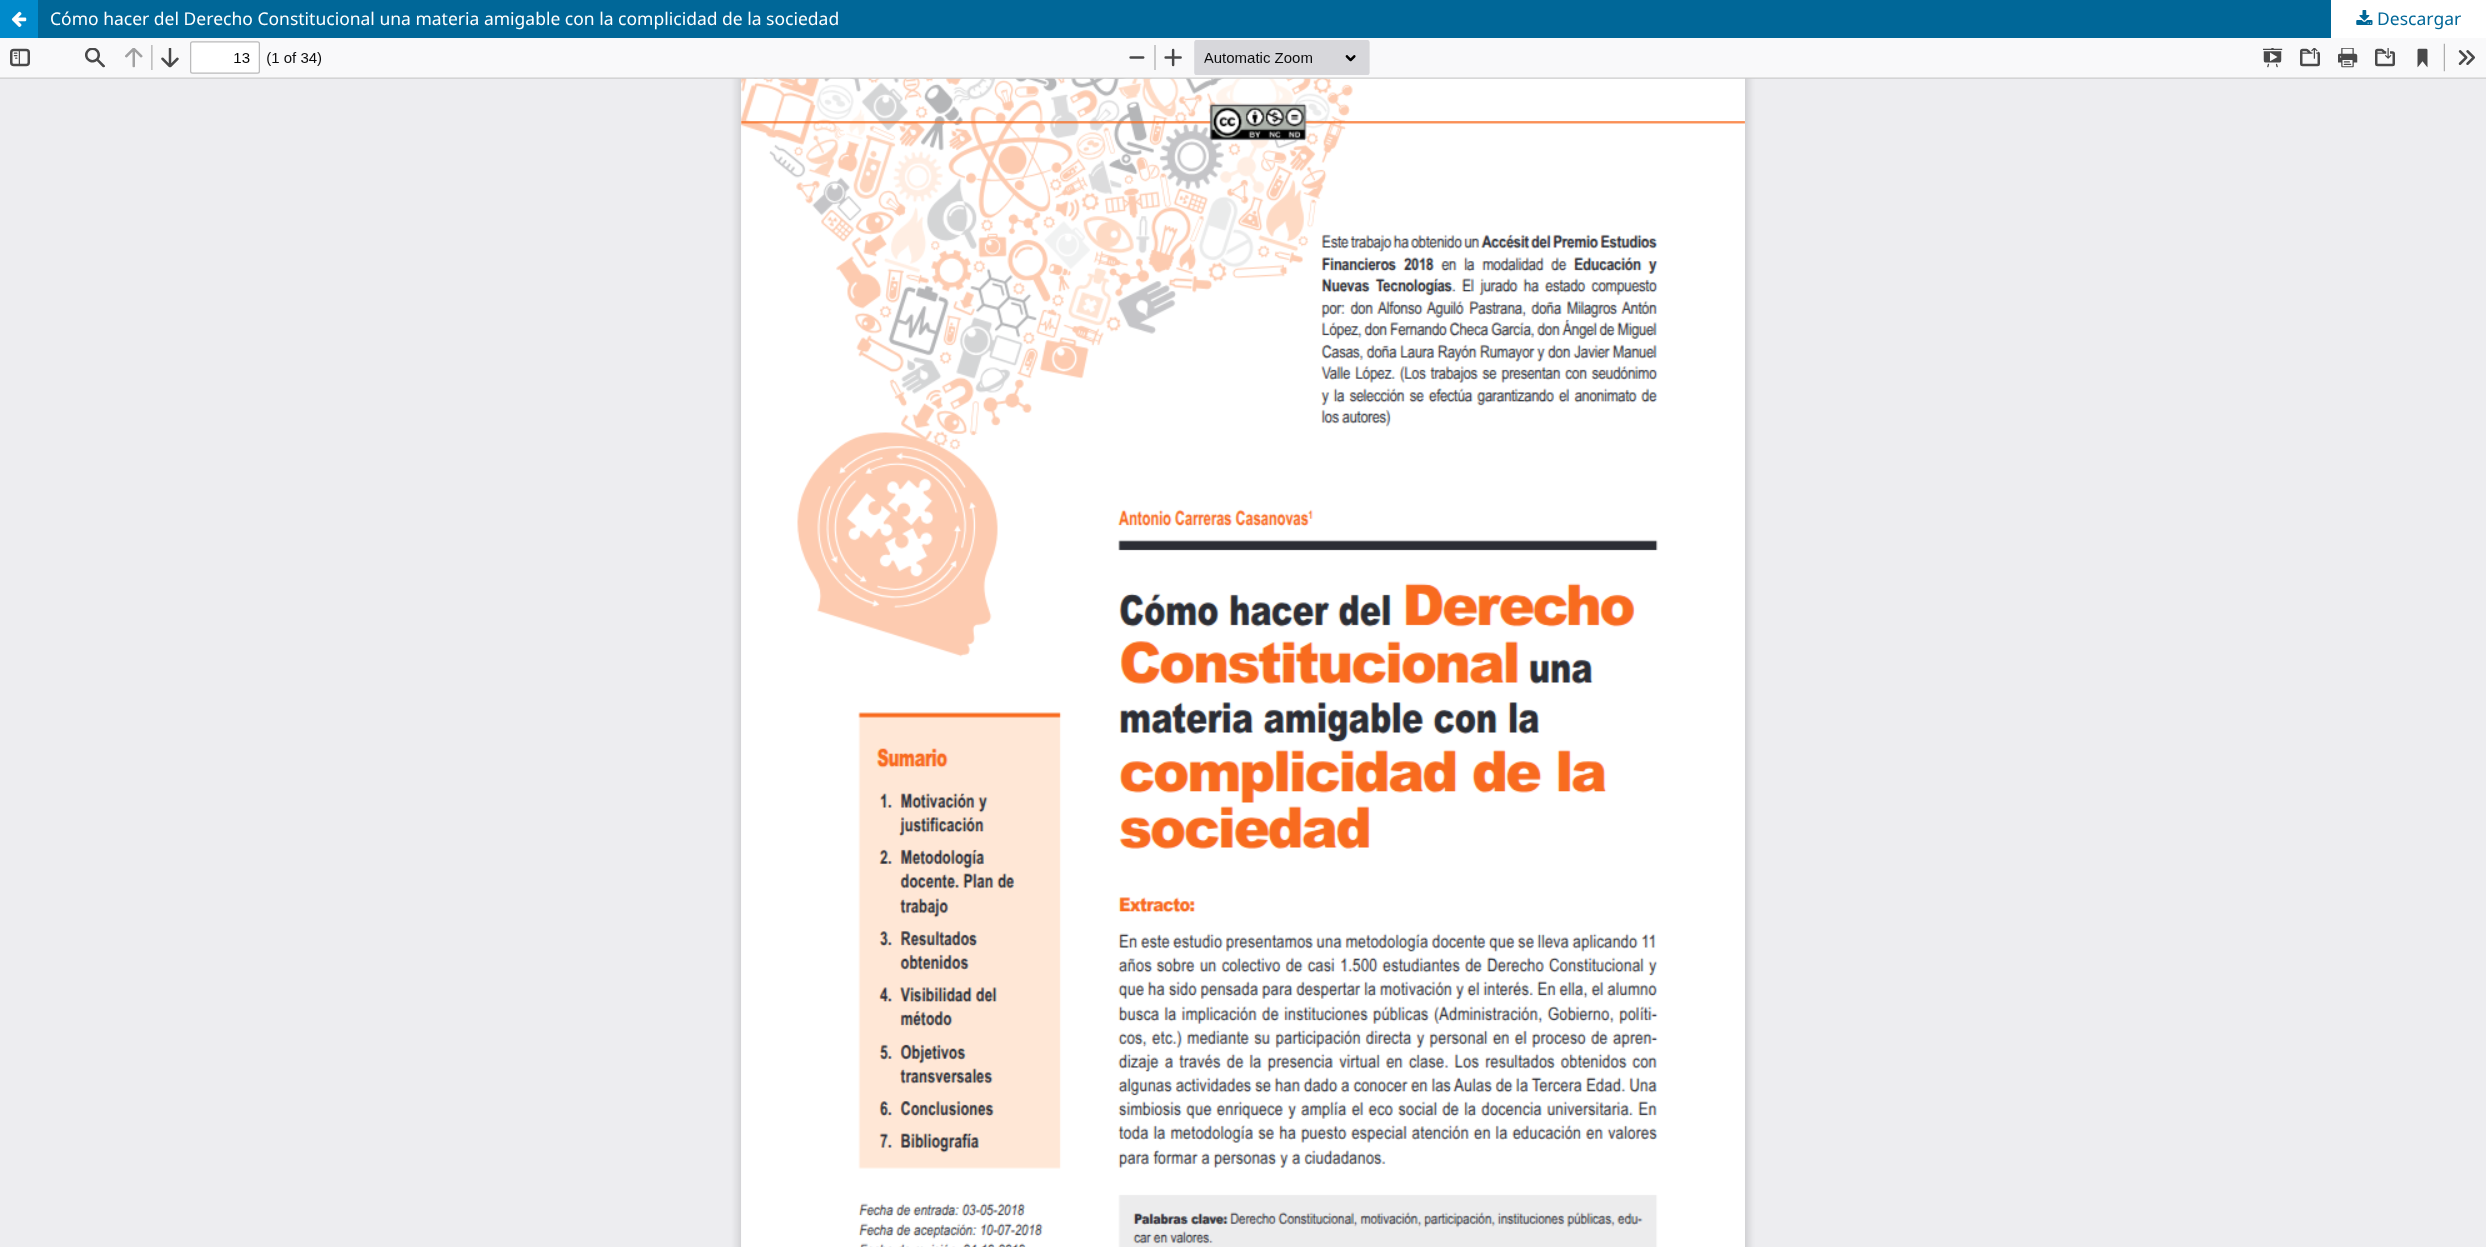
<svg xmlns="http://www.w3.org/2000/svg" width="2486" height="1247">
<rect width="100%" height="100%" fill="#fff"/>
<rect x="38" width="2293" height="38" fill="#006798"/>
<rect width="38" height="38" fill="#008acb"/>
<image x="11" y="11" width="16" height="16" href="media/1.png"/>
<text x="50" y="25" style="font-family:Noto Sans;font-size:17.5px;fill:#fff">Cómo hacer del Derecho Constitucional una materia amigable con la complicidad de la sociedad</text>
<image x="2356" y="10" width="17" height="15" href="media/2.png"/>
<text x="2377" y="25" style="font-family:Noto Sans;font-size:17.5px;fill:#006798">Descargar</text>
<image x="0" y="38" width="2486" height="1209" href="media/3.png"/>
</svg>
